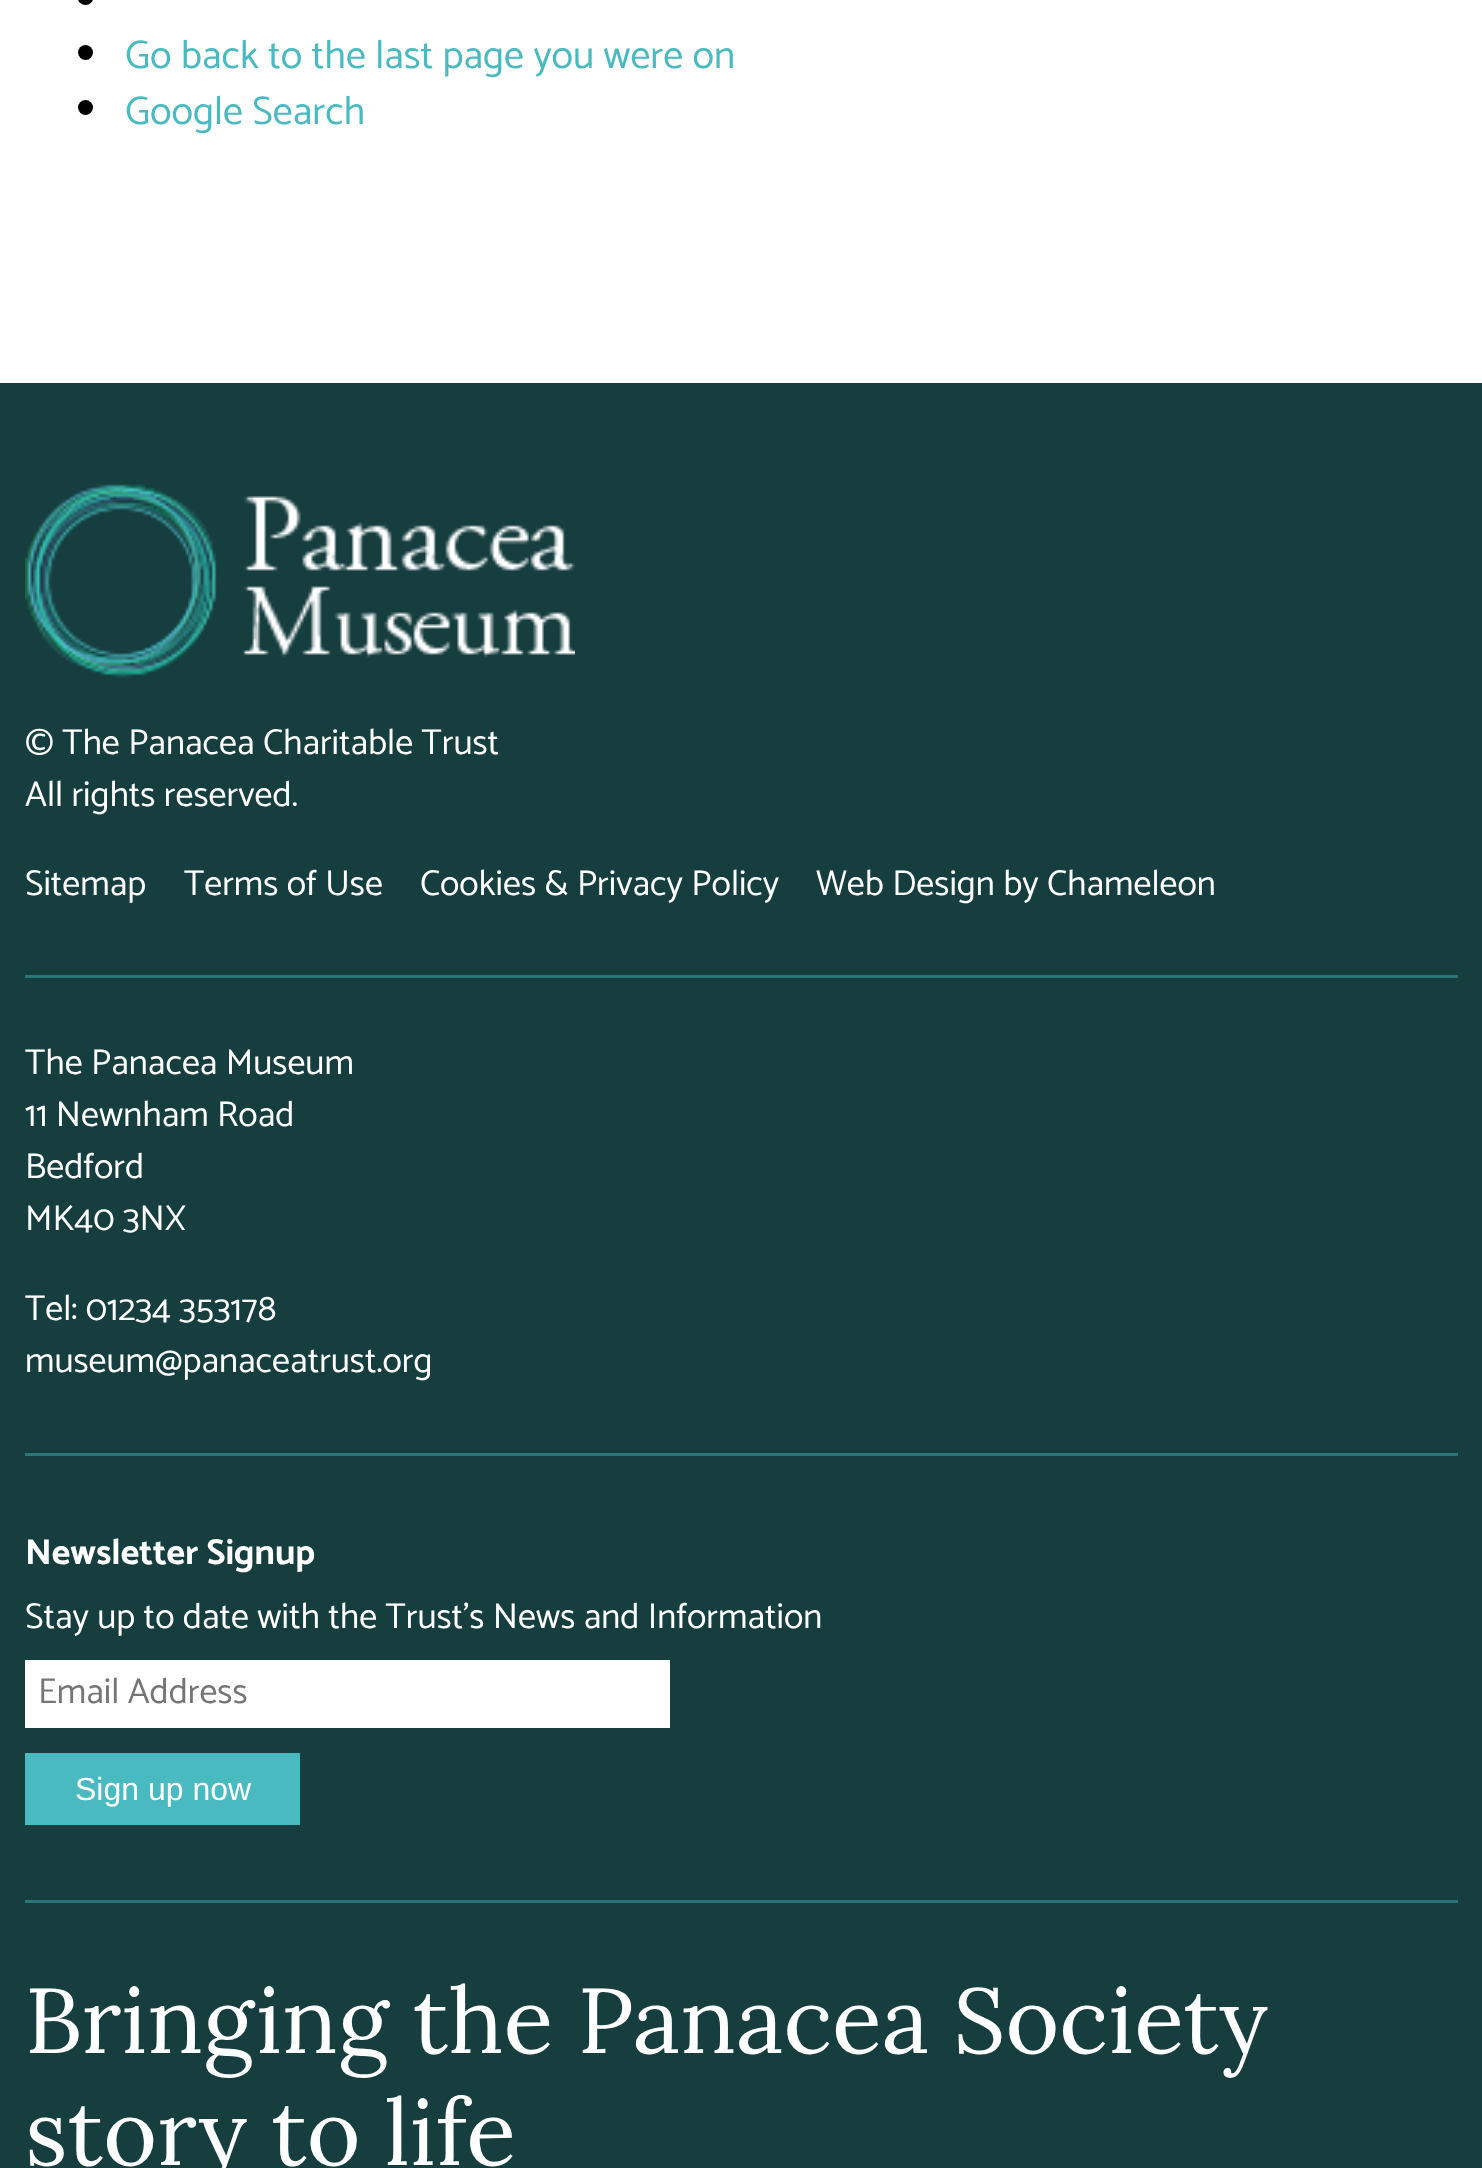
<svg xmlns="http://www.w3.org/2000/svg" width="1482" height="2168">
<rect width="100%" height="100%" fill="#fff"/>
<rect x="78" y="-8" width="15" height="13" rx="7.5" fill="#000"/>
<circle cx="85.5" cy="52.5" r="7.5" fill="#000"/>
<text x="125" y="68" style="font-family:Catamaran;font-size:40px;fill:#49babf">Go back to the last page you were on</text>
<circle cx="85.5" cy="107.5" r="7.5" fill="#000"/>
<text x="125" y="124" style="font-family:Catamaran;font-size:40px;fill:#49babf">Google Search</text>
<rect y="383" width="1482" height="1785" fill="#163e3f"/>
<rect x="25" y="975" width="1433" height="3" fill="#2a7578"/>
<image x="25" y="484" width="550" height="194" href="media/1.png"/>
<text x="25" y="754" style="font-family:Catamaran;font-size:36px;fill:#fff">© The Panacea Charitable Trust</text>
<text x="25" y="806" style="font-family:Catamaran;font-size:36px;fill:#fff">All rights reserved.</text>
<text x="25" y="895" style="font-family:Catamaran;font-size:36px;fill:#fff">Sitemap</text>
<text x="184" y="895" style="font-family:Catamaran;font-size:36px;fill:#fff">Terms of Use</text>
<text x="420" y="895" style="font-family:Catamaran;font-size:36px;fill:#fff">Cookies &amp; Privacy Policy</text>
<text x="816" y="895" style="font-family:Catamaran;font-size:36px;fill:#fff">Web Design by Chameleon</text>
<rect x="25" y="1453" width="1433" height="3" fill="#2a7578"/>
<text x="25" y="1074" style="font-family:Catamaran;font-size:36px;fill:#fff">The Panacea Museum</text>
<text x="25" y="1126" style="font-family:Catamaran;font-size:36px;fill:#fff">11 Newnham Road</text>
<text x="25" y="1178" style="font-family:Catamaran;font-size:36px;fill:#fff">Bedford</text>
<text x="25" y="1230" style="font-family:Catamaran;font-size:36px;fill:#fff">MK40 3NX</text>
<text x="25" y="1320" style="font-family:Catamaran;font-size:36px;fill:#fff">Tel: 01234 353178</text>
<text x="25" y="1372" style="font-family:Catamaran;font-size:36px;fill:#fff">museum@panaceatrust.org</text>
<rect x="25" y="1900" width="1433" height="3" fill="#2a7578"/>
<text x="25" y="1564" style="font-family:Catamaran;font-size:36px;font-weight:bold;fill:#fff">Newsletter Signup</text>
<text x="25" y="1628" style="font-family:Catamaran;font-size:36px;fill:#fff">Stay up to date with the Trust’s News and Information</text>
<rect x="25" y="1660" width="645" height="68" fill="#fff"/>
<text x="38" y="1703" style="font-family:Catamaran;font-size:36px;fill:#757575">Email Address</text>
<rect x="25" y="1753" width="275" height="72" fill="#49babf"/>
<text x="75" y="1800" style="font-family:Liberation Sans;font-size:32px;fill:#fff">Sign up now</text>
<text x="25" y="2053" style="font-family:Lora;font-size:92px;fill:#fff">Bringing the Panacea Society</text>
<text x="25" y="2165" style="font-family:Lora;font-size:92px;fill:#fff">story to life</text>
</svg>
